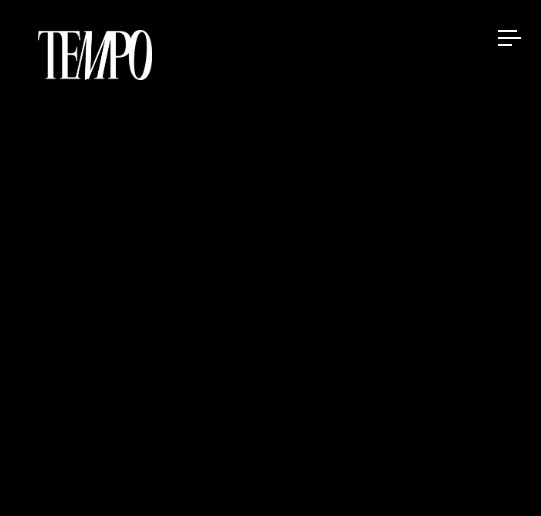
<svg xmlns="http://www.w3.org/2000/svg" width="541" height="516">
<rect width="100%" height="100%" fill="#000"/>
<image x="38" y="30" width="114" height="50" href="media/1.png"/>
<rect x="498" y="37" width="23" height="2" fill="#fff"/>
<rect x="498" y="30" width="19" height="2" fill="#fff"/>
<rect x="498" y="44" width="14" height="2" fill="#fff"/>
</svg>
